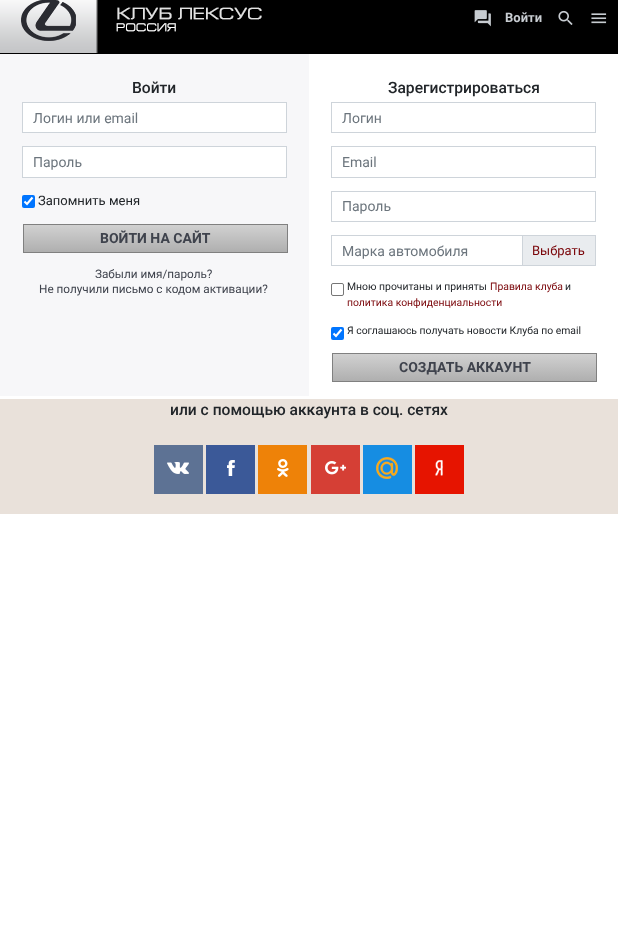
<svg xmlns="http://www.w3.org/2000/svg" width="618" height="946">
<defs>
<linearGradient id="g1" gradientUnits="userSpaceOnUse" x1="156" y1="225" x2="156" y2="252"><stop offset="0" stop-color="#d1d1d1"/><stop offset="1" stop-color="#afafaf"/></linearGradient>
<linearGradient id="g2" gradientUnits="userSpaceOnUse" x1="465" y1="354" x2="465" y2="381"><stop offset="0" stop-color="#d1d1d1"/><stop offset="1" stop-color="#afafaf"/></linearGradient>
</defs>
<rect width="100%" height="100%" fill="#fff"/>
<rect width="618" height="54" fill="#000"/>
<image x="0" y="0" width="262" height="53" href="media/1.png"/>
<image x="474" y="10" width="17" height="17" href="media/2.png"/>
<text x="505" y="22" style="font-family:Roboto;font-size:13px;font-weight:bold;fill:#c7ccd1">Войти</text>
<image x="558" y="10" width="15" height="15" href="media/3.png"/>
<image x="591" y="13" width="16" height="11" href="media/4.png"/>
<rect y="54" width="309" height="342" fill="#f7f7f9"/>
<text x="132" y="93" style="font-family:Roboto;font-size:15.6px;font-weight:500;fill:#212529">Войти</text>
<rect x="22.5" y="102.5" width="264" height="30" fill="#fff" stroke="#ced4da"/>
<text x="33" y="123" style="font-family:Roboto;font-size:14px;fill:#6c757d">Логин или email</text>
<rect x="22.5" y="146.5" width="264" height="31" fill="#fff" stroke="#ced4da"/>
<text x="33" y="167" style="font-family:Roboto;font-size:14px;fill:#6c757d">Пароль</text>
<rect x="22" y="195" width="13" height="13" rx="2" fill="#0075ff"/>
<path d="M24.5 201.5l2.5 2.5l5.5-6.5" fill="none" stroke="#fff" stroke-width="2.1"/>
<text x="38" y="205" style="font-family:Roboto;font-size:13px;fill:#212529">Запомнить меня</text>
<rect x="24" y="225" width="263" height="27" fill="url(#g1)"/>
<rect x="23.5" y="224.5" width="264" height="28" fill="none" stroke="#808080"/>
<text x="100" y="243" style="font-family:Roboto;font-size:14px;font-weight:bold;fill:#3f434d">ВОЙТИ НА САЙТ</text>
<text x="95" y="278" style="font-family:Roboto;font-size:11.75px;fill:#3f434d">Забыли имя/пароль?</text>
<text x="39" y="293" style="font-family:Roboto;font-size:11.75px;fill:#3f434d">Не получили письмо с кодом активации?</text>
<text x="388" y="93" style="font-family:Roboto;font-size:15.6px;font-weight:500;fill:#212529">Зарегистрироваться</text>
<rect x="331.5" y="102.5" width="264" height="30" fill="none" stroke="#ced4da"/>
<text x="342" y="123" style="font-family:Roboto;font-size:14px;fill:#6c757d">Логин</text>
<rect x="331.5" y="146.5" width="264" height="31" fill="none" stroke="#ced4da"/>
<text x="342" y="167" style="font-family:Roboto;font-size:14px;fill:#6c757d">Email</text>
<rect x="331.5" y="191.5" width="264" height="30" fill="none" stroke="#ced4da"/>
<text x="342" y="211" style="font-family:Roboto;font-size:14px;fill:#6c757d">Пароль</text>
<rect x="331.5" y="235.5" width="191" height="30" fill="none" stroke="#ced4da"/>
<text x="342" y="256" style="font-family:Roboto;font-size:14px;fill:#6c757d">Марка автомобиля</text>
<rect x="522.5" y="235.5" width="73" height="30" fill="#e9ecef" stroke="#ced4da"/>
<text x="532" y="255" style="font-family:Roboto;font-size:13px;fill:#7a0509">Выбрать</text>
<rect x="331.5" y="283.5" width="12" height="12" rx="1.5" fill="none" stroke="#767676"/>
<text x="347" y="290" style="font-family:Roboto;font-size:10.4px;fill:#212529">Мною прочитаны и приняты</text>
<text x="490" y="290" style="font-family:Roboto;font-size:10.4px;fill:#7a0509">Правила клуба</text>
<text x="565" y="290" style="font-family:Roboto;font-size:10.4px;fill:#212529">и</text>
<text x="347" y="306" style="font-family:Roboto;font-size:10.4px;fill:#7a0509">политика конфиденциальности</text>
<rect x="331" y="327" width="13" height="13" rx="2" fill="#0075ff"/>
<path d="M333.5 333.5l2.5 2.5l5.5-6.5" fill="none" stroke="#fff" stroke-width="2.1"/>
<text x="347" y="334" style="font-family:Roboto;font-size:10.4px;fill:#212529">Я соглашаюсь получать новости Клуба по email</text>
<rect x="333" y="354" width="263" height="27" fill="url(#g2)"/>
<rect x="332.5" y="353.5" width="264" height="28" fill="none" stroke="#808080"/>
<text x="399" y="372" style="font-family:Roboto;font-size:14px;font-weight:bold;fill:#3f434d">СОЗДАТЬ АККАУНТ</text>
<rect y="399" width="618" height="115" fill="#e9e1da"/>
<text x="170" y="415" style="font-family:Roboto;font-size:15.6px;font-weight:500;fill:#212529">или с помощью аккаунта в соц. сетях</text>
<rect x="154" y="445" width="49" height="49" fill="#5d7294"/>
<image x="167" y="462" width="22" height="12" href="media/5.png"/>
<rect x="206" y="445" width="49" height="49" fill="#3b5998"/>
<image x="227" y="460" width="8" height="16" href="media/6.png"/>
<rect x="258" y="445" width="49" height="49" fill="#ee8208"/>
<image x="277" y="459" width="12" height="18" href="media/7.png"/>
<rect x="311" y="445" width="49" height="49" fill="#d53f35"/>
<image x="325" y="461" width="21" height="14" href="media/8.png"/>
<rect x="363" y="445" width="49" height="49" fill="#168de2"/>
<image x="376" y="457" width="22" height="22" href="media/9.png"/>
<rect x="415" y="445" width="49" height="49" fill="#e61400"/>
<image x="435" y="460" width="8" height="16" href="media/10.png"/>
</svg>
